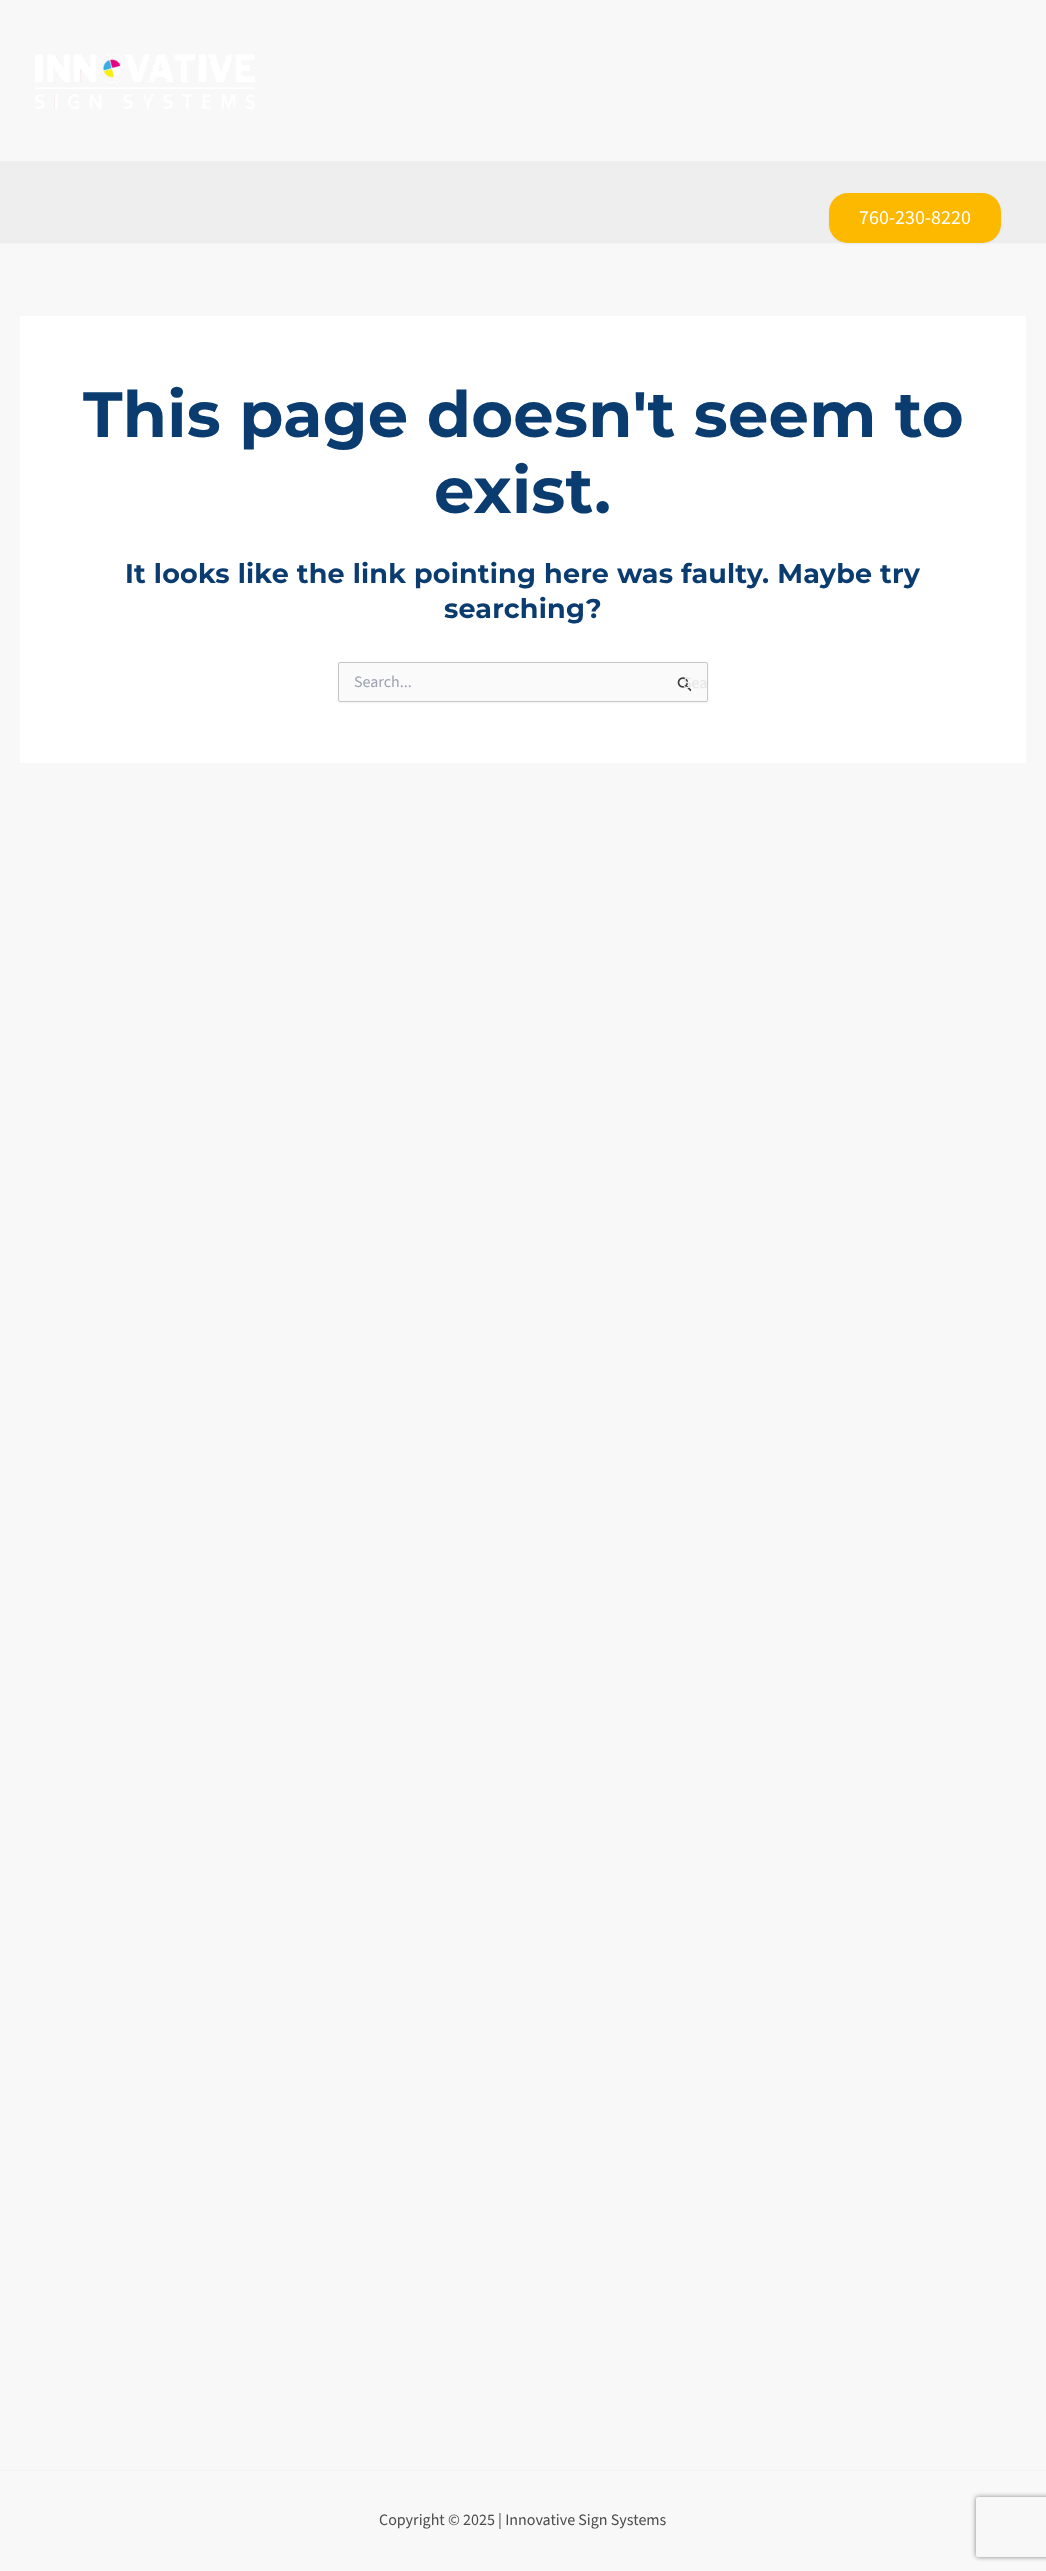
<svg xmlns="http://www.w3.org/2000/svg" width="1046" height="2571">
<defs>
<clipPath id="clip1"><path d="M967 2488h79v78h-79zm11 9h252c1 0 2 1 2 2v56c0 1-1 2-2 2h-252c-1 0-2-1-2-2v-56c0-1 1-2 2-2z" clip-rule="evenodd"/></clipPath>
</defs>
<rect width="100%" height="100%" fill="#f8f8f8"/>
<image x="35" y="52" width="220" height="57" href="media/1.png"/>
<rect y="161" width="1046" height="82" fill="#eee"/>
<rect y="243" width="1046" height="1" fill="#f3f4f6"/>
<rect x="829" y="194" width="172" height="50" rx="19" fill="#0000000d" filter="blur(1px)"/>
<rect x="829" y="193" width="172" height="50" rx="19" fill="#fcb900"/>
<text x="859" y="224" style="font-family:'Source Sans 3';font-size:20px;font-weight:200;fill:#fff">760-230-8220</text>
<rect x="20" y="316" width="1006" height="447" fill="#fff"/>
<text x="83" y="437" style="font-family:Montserrat;font-size:64px;font-weight:100;letter-spacing:0.2px;fill:#0b3c70">This page doesn't seem to</text>
<text x="434" y="513" style="font-family:Montserrat;font-size:64px;font-weight:100;letter-spacing:0.2px;fill:#0b3c70">exist.</text>
<text x="125" y="583" style="font-family:Montserrat;font-size:27px;font-weight:100;letter-spacing:0.2px;fill:#0b3c70">It looks like the link pointing here was faulty. Maybe try</text>
<text x="444" y="618" style="font-family:Montserrat;font-size:27px;font-weight:100;letter-spacing:0.2px;fill:#0b3c70">searching?</text>
<rect x="338" y="663" width="370" height="40" rx="2" fill="#0000000d" filter="blur(1px)"/>
<rect x="338.5" y="662.5" width="369" height="39" rx="1.5" fill="#fafafa" stroke="#c5c6c7"/>
<text x="354" y="687" style="font-family:'Source Sans 3';font-size:16px;font-weight:200;fill:#9ca3af">Search...</text>
<image x="677" y="677" width="14" height="15" href="media/2.png"/>
<text x="683" y="688" style="font-family:'Source Sans 3';font-size:16px;font-weight:200;fill:#e5e5e5">Sea</text>
<rect y="2470" width="1046" height="1" fill="#f3f4f6"/>
<text x="379" y="2525" style="font-family:'Source Sans 3';font-size:16px;font-weight:200;fill:#4b4b4d">Copyright © 2025 | Innovative Sign Systems</text>
<g clip-path="url(#clip1)">
<rect x="976" y="2497" width="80" height="60" rx="2" fill="#808080" filter="blur(2.5px)"/>
</g>
</svg>
